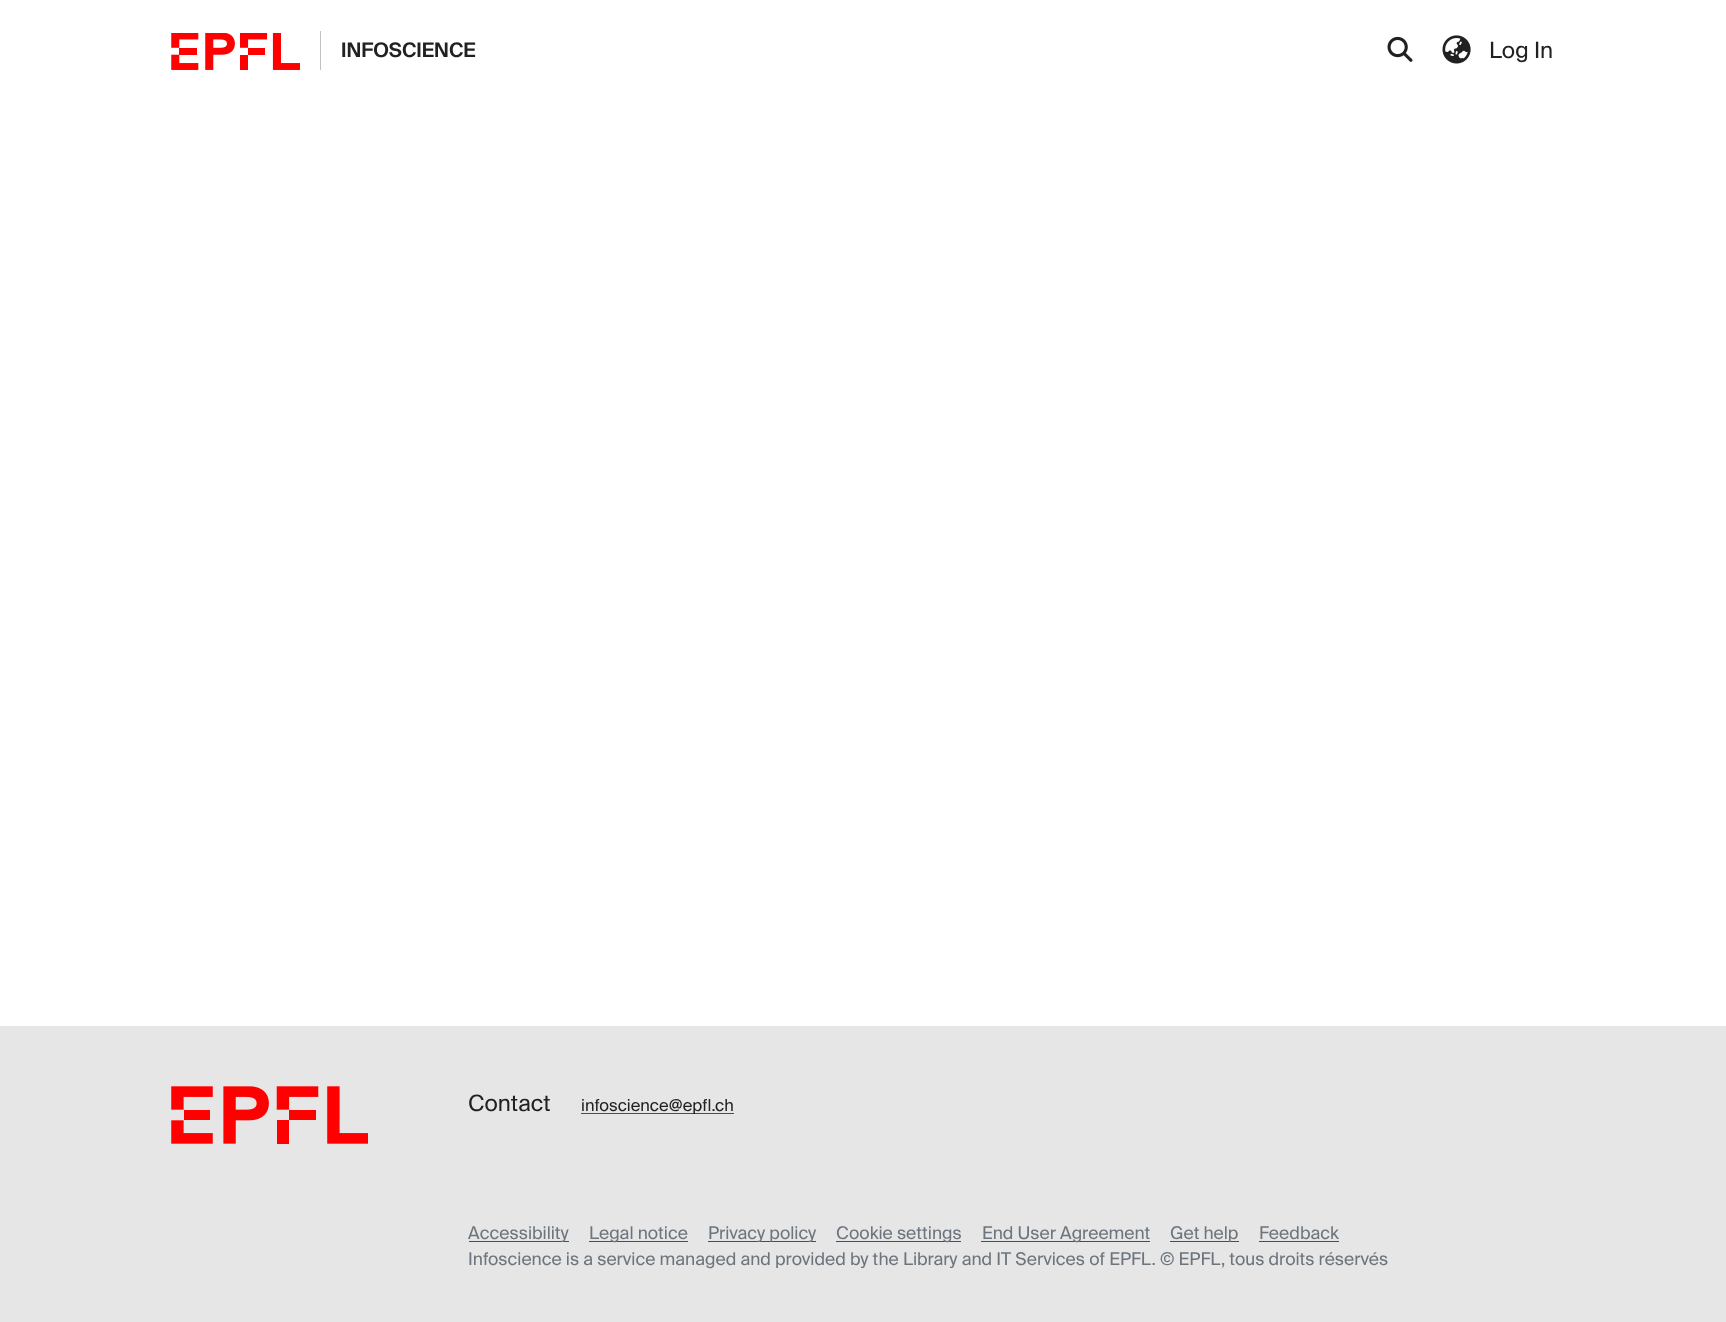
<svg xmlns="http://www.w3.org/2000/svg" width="1726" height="1322">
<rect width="100%" height="100%" fill="#fff"/>
<rect x="320" y="31" width="1" height="39" fill="#c1c1c1"/>
<image x="171" y="33" width="129" height="37" href="media/1.png"/>
<text x="341" y="57" style="font-family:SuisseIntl;font-size:20px;font-weight:600;fill:#212121">INFOSCIENCE</text>
<image x="1387" y="36" width="26" height="26" href="media/2.png"/>
<image x="1442" y="35" width="29" height="29" href="media/3.png"/>
<text x="1489" y="58" style="font-family:SuisseIntl;font-size:22.5px;fill:#212121">Log In</text>
<rect y="1026" width="1726" height="296" fill="#e6e6e6"/>
<image x="171" y="1086" width="197" height="58" href="media/4.png"/>
<text x="468" y="1111" style="font-family:SuisseIntl;font-size:22.5px;fill:#212121">Contact</text>
<rect x="581" y="1113" width="153" height="1" fill="#f00"/>
<text x="581" y="1111" style="font-family:SuisseIntl;font-size:16.5px;fill:#212121">infoscience@epfl.ch</text>
<rect x="469" y="1241" width="100" height="1" fill="#f00"/>
<text x="468" y="1239" style="font-family:SuisseIntl;font-size:17.5px;fill:#6c757d">Accessibility</text>
<rect x="589" y="1241" width="99" height="1" fill="#f00"/>
<text x="589" y="1239" style="font-family:SuisseIntl;font-size:17.5px;fill:#6c757d">Legal notice</text>
<rect x="708" y="1241" width="108" height="1" fill="#f00"/>
<text x="708" y="1239" style="font-family:SuisseIntl;font-size:17.5px;fill:#6c757d">Privacy policy</text>
<rect x="836" y="1241" width="125" height="1" fill="#f00"/>
<text x="836" y="1239" style="font-family:SuisseIntl;font-size:17.5px;fill:#6c757d">Cookie settings</text>
<rect x="981" y="1241" width="169" height="1" fill="#f00"/>
<text x="982" y="1239" style="font-family:SuisseIntl;font-size:17.5px;fill:#6c757d">End User Agreement</text>
<rect x="1170" y="1241" width="69" height="1" fill="#f00"/>
<text x="1170" y="1239" style="font-family:SuisseIntl;font-size:17.5px;fill:#6c757d">Get help</text>
<text x="1259" y="1239" style="font-family:SuisseIntl;font-size:17.5px;fill:#6c757d">Feedback</text>
<rect x="1259" y="1241" width="80" height="1" fill="#f00"/>
<text x="468" y="1265" style="font-family:SuisseIntl;font-size:17.5px;fill:#6c757d">Infoscience is a service managed and provided by the Library and IT Services of EPFL. © EPFL, tous droits réservés</text>
</svg>
